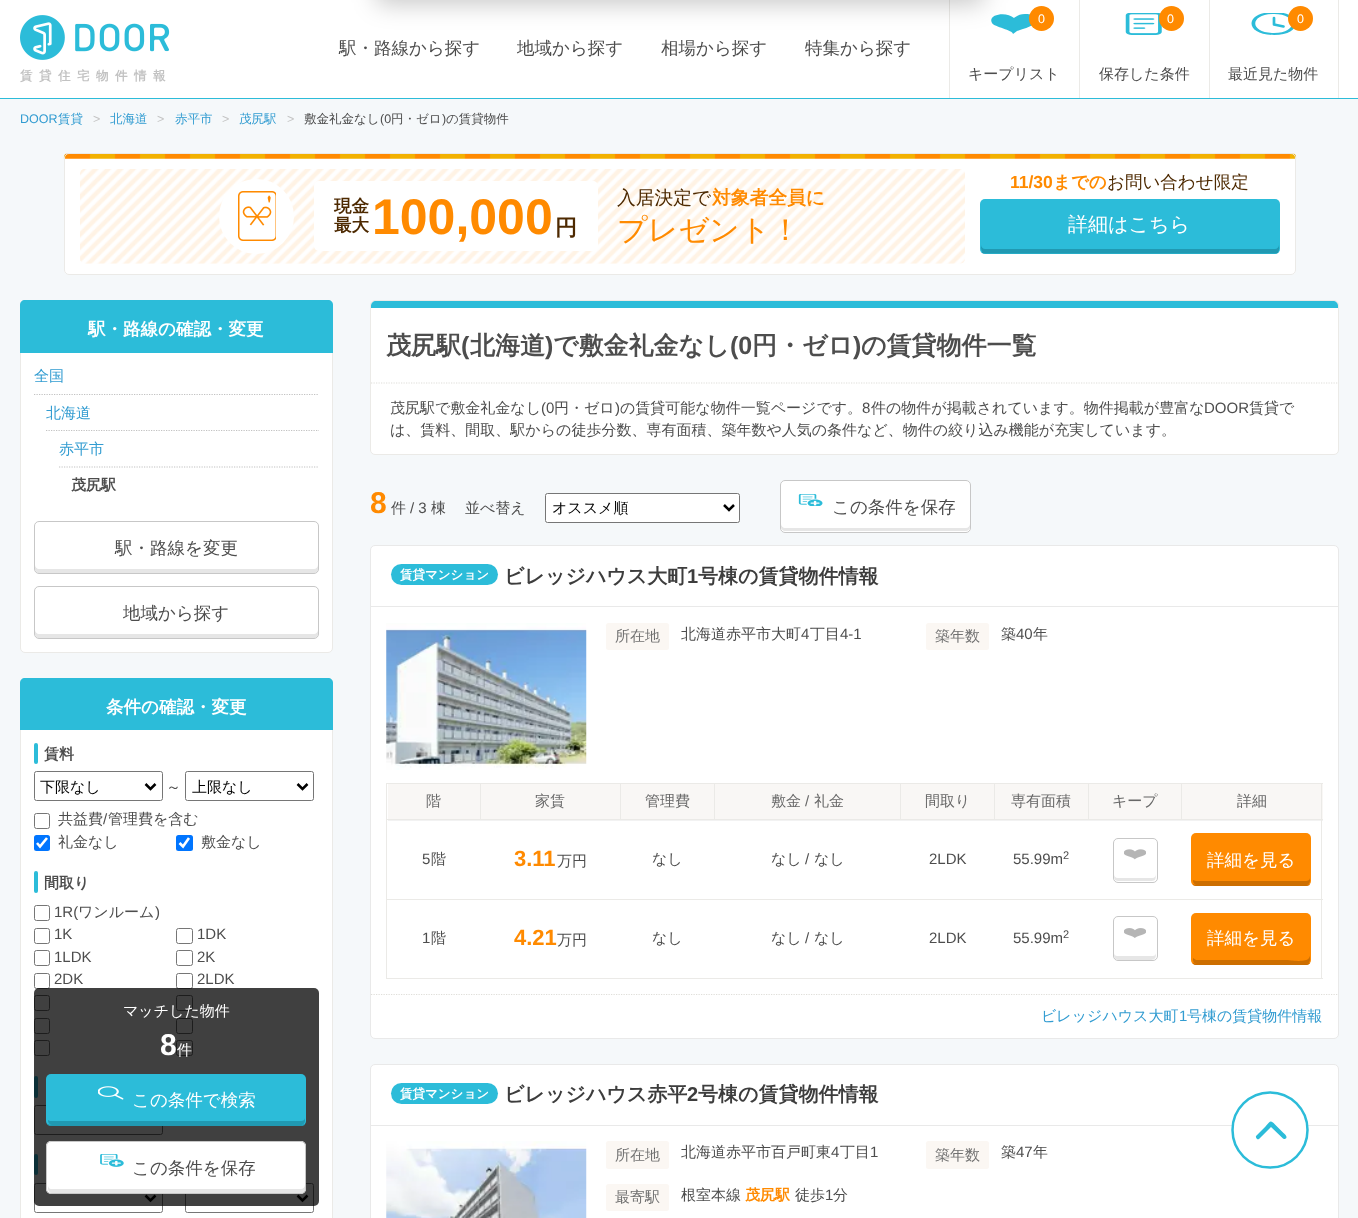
<svg xmlns="http://www.w3.org/2000/svg" width="1358" height="1218">
<defs>
<clipPath id="clip1"><rect x="1251" y="13" width="45" height="22"/></clipPath>
</defs>
<rect width="100%" height="100%" fill="#f5f8fa"/>
<rect width="1358" height="98" fill="#fff"/>
<rect x="949" width="1" height="98" fill="#ebeae7"/>
<path d="M1025 14c-7 0-11 4-11 4c-7-7-27-4-22 5c2 4 21 7 21 11l4-3c4-2 25-6 18-14c-2-3-7-3-10-3z" fill="#2cbcd9"/>
<rect x="376" y="-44" width="608" height="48" rx="6" fill="#00000038" filter="blur(12.5px)"/>
<rect y="98" width="1358" height="1" fill="#2cbcd9"/>
<image x="20" y="15" width="150" height="45" href="media/1.png"/>
<text x="20" y="80" style="font-family:WenQuanYi Zen Hei;font-size:12.5px;font-weight:bold;letter-spacing:6.5px;fill:#c2c2c2">賃貸住宅物件情報</text>
<text x="339" y="54" style="font-family:WenQuanYi Zen Hei;font-size:17.5px;font-weight:500;fill:#4d4d4d">駅・路線から探す</text>
<text x="517" y="54" style="font-family:WenQuanYi Zen Hei;font-size:17.5px;font-weight:500;fill:#4d4d4d">地域から探す</text>
<text x="661" y="54" style="font-family:WenQuanYi Zen Hei;font-size:17.5px;font-weight:500;fill:#4d4d4d">相場から探す</text>
<text x="805" y="54" style="font-family:WenQuanYi Zen Hei;font-size:17.5px;font-weight:500;fill:#4d4d4d">特集から探す</text>
<rect x="1079" width="1" height="98" fill="#ebeae7"/>
<circle cx="1041.5" cy="18.5" r="12.5" fill="#ff8a00"/>
<text x="1038" y="23" style="font-family:Liberation Sans;font-size:12.5px;fill:#fff">0</text>
<text x="968" y="79" style="font-family:WenQuanYi Zen Hei;font-size:15px;font-weight:500;fill:#4d4d4d">キープリスト</text>
<rect x="1209" width="1" height="98" fill="#ebeae7"/>
<image x="1125" y="13" width="37" height="22" href="media/2.png"/>
<circle cx="1171.5" cy="18.5" r="12.5" fill="#ff8a00"/>
<text x="1167" y="23" style="font-family:Liberation Sans;font-size:12.5px;fill:#fff">0</text>
<text x="1099" y="79" style="font-family:WenQuanYi Zen Hei;font-size:15px;font-weight:500;fill:#4d4d4d">保存した条件</text>
<rect x="1338" width="1" height="98" fill="#ebeae7"/>
<g clip-path="url(#clip1)">
<path d="M1274 14c24 0 24 19 0 19c-25 0-25-19 0-19m0-2c-30 0-30 23 0 23c29 0 29-23 0-23z" fill="#2cbcd9"/>
</g>
<circle cx="1300.5" cy="18.5" r="12.5" fill="#ff8a00"/>
<text x="1297" y="23" style="font-family:Liberation Sans;font-size:12.5px;fill:#fff">0</text>
<path d="M1274 18v6.5l9.5 2" fill="none" stroke="#2cbcd9" stroke-width="2.7" stroke-linecap="round" stroke-linejoin="round"/>
<text x="1228" y="79" style="font-family:WenQuanYi Zen Hei;font-size:15px;font-weight:500;fill:#4d4d4d">最近見た物件</text>
<text x="20" y="123" style="font-family:Liberation Sans;font-size:12.5px;fill:#329cd1">DOOR</text>
<text x="58" y="123" style="font-family:WenQuanYi Zen Hei;font-size:12.5px;font-weight:500;fill:#329cd1">賃貸</text>
<text x="93" y="123" style="font-family:Liberation Sans;font-size:12.5px;fill:#c2c2c2">&gt;</text>
<text x="110" y="123" style="font-family:WenQuanYi Zen Hei;font-size:12.5px;font-weight:500;fill:#329cd1">北海道</text>
<text x="157" y="123" style="font-family:Liberation Sans;font-size:12.5px;fill:#c2c2c2">&gt;</text>
<text x="175" y="123" style="font-family:WenQuanYi Zen Hei;font-size:12.5px;font-weight:500;fill:#329cd1">赤平市</text>
<text x="222" y="123" style="font-family:Liberation Sans;font-size:12.5px;fill:#c2c2c2">&gt;</text>
<text x="239" y="123" style="font-family:WenQuanYi Zen Hei;font-size:12.5px;font-weight:500;fill:#329cd1">茂尻駅</text>
<text x="287" y="123" style="font-family:Liberation Sans;font-size:12.5px;fill:#c2c2c2">&gt;</text>
<text x="304" y="123" style="font-family:WenQuanYi Zen Hei;font-size:12.5px;font-weight:500;fill:#4d4d4d">敷金礼金なし</text>
<text x="380" y="123" style="font-family:Liberation Sans;font-size:12.5px;fill:#4d4d4d">(0</text>
<text x="391" y="123" style="font-family:WenQuanYi Zen Hei;font-size:12.5px;font-weight:500;fill:#4d4d4d">円・ゼロ</text>
<text x="442" y="123" style="font-family:Liberation Sans;font-size:12.5px;fill:#4d4d4d">)</text>
<text x="446" y="123" style="font-family:WenQuanYi Zen Hei;font-size:12.5px;font-weight:500;fill:#4d4d4d">の賃貸物件</text>
<rect x="64" y="153" width="1232" height="122" rx="5" fill="#fff"/>
<image x="63" y="153" width="1234" height="6" href="media/3.png"/>
<rect x="64.5" y="153.5" width="1231" height="121" rx="4.5" fill="none" stroke="#ebeae7"/>
<image x="80" y="169" width="885" height="95" href="media/4.png"/>
<circle cx="256.5" cy="216.5" r="37.5" fill="#fff"/>
<image x="238" y="191" width="38" height="50" href="media/5.png"/>
<rect x="314" y="181" width="284" height="70" rx="5" fill="#fff"/>
<text x="334" y="212" style="font-family:WenQuanYi Zen Hei;font-size:17.5px;font-weight:bold;fill:#4d2900">現金</text>
<text x="334" y="231" style="font-family:WenQuanYi Zen Hei;font-size:17.5px;font-weight:bold;fill:#4d2900">最大</text>
<text x="372" y="234" style="font-family:Liberation Sans;font-size:50px;font-weight:bold;fill:#ff8a00">100,000</text>
<text x="555" y="235" style="font-family:WenQuanYi Zen Hei;font-size:22px;font-weight:bold;fill:#4d2900">円</text>
<text x="617" y="204" style="font-family:WenQuanYi Zen Hei;font-size:18.75px;font-weight:500;fill:#4d2900">入居決定で</text>
<text x="712" y="204" style="font-family:WenQuanYi Zen Hei;font-size:18.75px;font-weight:bold;fill:#ff8a00">対象者全員に</text>
<text x="617" y="240" style="font-family:WenQuanYi Zen Hei;font-size:30px;font-weight:500;fill:#ff8a00">プレゼント！</text>
<text x="1010" y="188" style="font-family:Liberation Sans;font-size:17.5px;font-weight:bold;fill:#ff8a00">11/30</text>
<text x="1053" y="188" style="font-family:WenQuanYi Zen Hei;font-size:17.5px;font-weight:bold;fill:#ff8a00">までの</text>
<text x="1107" y="188" style="font-family:WenQuanYi Zen Hei;font-size:17.5px;font-weight:500;fill:#4d2900">お問い合わせ限定</text>
<rect x="980" y="199" width="300" height="55" rx="5" fill="#2cbcd9"/>
<path d="M981 245c0 3 0 8 4 8h291c4-1 3-5 3-8c0 2-2 4-4 4h-290c-2 0-4-2-4-4z" fill="#2099b2"/>
<path d="M1278 252c-.5 .5-2 1-3 1h-290c-1 0-2.5-.5-3-1" fill="none" stroke="#2099b2" stroke-width="1.2"/>
<text x="1068" y="231" style="font-family:WenQuanYi Zen Hei;font-size:20px;font-weight:500;fill:#fff">詳細はこちら</text>
<rect x="20.5" y="300.5" width="312" height="352" rx="4.5" fill="#fff" stroke="#ebeae7"/>
<path d="M25 300h303c3 0 5 2 5 5v48h-313v-48c0-3 2-5 5-5z" fill="#2cbcd9"/>
<text x="88" y="335" style="font-family:WenQuanYi Zen Hei;font-size:17.5px;font-weight:bold;fill:#fff">駅・路線の確認・変更</text>
<path d="M34 394.5h285" fill="none" stroke="#c2c2c2" stroke-width="1.2" stroke-dasharray="1.25 1.25"/>
<text x="34" y="381" style="font-family:WenQuanYi Zen Hei;font-size:15px;font-weight:500;fill:#329cd1">全国</text>
<path d="M46 430.5h273" fill="none" stroke="#c2c2c2" stroke-width="1.2" stroke-dasharray="1.25 1.25"/>
<text x="46" y="418" style="font-family:WenQuanYi Zen Hei;font-size:15px;font-weight:500;fill:#329cd1">北海道</text>
<path d="M59 467h260" fill="none" stroke="#c2c2c2" stroke-width="1.2" stroke-dasharray="1.25 1.25"/>
<text x="59" y="454" style="font-family:WenQuanYi Zen Hei;font-size:15px;font-weight:500;fill:#329cd1">赤平市</text>
<text x="71" y="490" style="font-family:WenQuanYi Zen Hei;font-size:15px;font-weight:bold;fill:#4d4d4d">茂尻駅</text>
<path d="M35 565v4c0 2 2 4 4 4h275c2 0 4-2 4-4v-4c0 2-2 4-4 4h-275c-2 0-4-2-4-4z" fill="#e6e6e6"/>
<rect x="34.5" y="521.5" width="284" height="52" rx="4.5" fill="none" stroke="#c7c7c7"/>
<text x="115" y="554" style="font-family:WenQuanYi Zen Hei;font-size:17.5px;font-weight:500;fill:#4d4d4d">駅・路線を変更</text>
<path d="M35 630v4c0 2 2 4 4 4h275c2 0 4-2 4-4v-4c0 2-2 4-4 4h-275c-2 0-4-2-4-4z" fill="#e6e6e6"/>
<rect x="34.5" y="586.5" width="284" height="52" rx="4.5" fill="none" stroke="#c7c7c7"/>
<text x="123" y="619" style="font-family:WenQuanYi Zen Hei;font-size:17.5px;font-weight:500;fill:#4d4d4d">地域から探す</text>
<rect x="20.5" y="678.5" width="312" height="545" rx="4.5" fill="#fff" stroke="#ebeae7"/>
<path d="M25 678h303c3 0 5 2 5 5v47h-313v-47c0-3 2-5 5-5z" fill="#2cbcd9"/>
<text x="106" y="713" style="font-family:WenQuanYi Zen Hei;font-size:17.5px;font-weight:bold;fill:#fff">条件の確認・変更</text>
<rect x="34" y="743" width="4" height="21" rx="2" fill="#2cbcd9"/>
<text x="44" y="759" style="font-family:WenQuanYi Zen Hei;font-size:15px;font-weight:bold;fill:#4d4d4d">賃料</text>
<rect x="34.5" y="771.5" width="128" height="29" rx="2" fill="none" stroke="#767676"/>
<path d="M145.5 784l5 5l5-5" fill="none" stroke="#000" stroke-width="2.5"/>
<text x="40" y="792" style="font-family:WenQuanYi Zen Hei;font-size:15px;font-weight:500;fill:#000">下限なし</text>
<text x="166" y="792" style="font-family:WenQuanYi Zen Hei;font-size:15px;font-weight:500;fill:#4d4d4d">～</text>
<rect x="185.5" y="771.5" width="128" height="29" rx="2" fill="none" stroke="#767676"/>
<path d="M297.5 784l5 5l5-5" fill="none" stroke="#000" stroke-width="2.5"/>
<text x="192" y="792" style="font-family:WenQuanYi Zen Hei;font-size:15px;font-weight:500;fill:#000">上限なし</text>
<rect x="34.5" y="813.5" width="15" height="15" rx="2" fill="none" stroke="#767676"/>
<text x="58" y="824" style="font-family:WenQuanYi Zen Hei;font-size:15px;font-weight:500;fill:#4d4d4d">共益費</text>
<text x="103" y="824" style="font-family:Liberation Sans;font-size:15px;fill:#4d4d4d">/</text>
<text x="108" y="824" style="font-family:WenQuanYi Zen Hei;font-size:15px;font-weight:500;fill:#4d4d4d">管理費を含む</text>
<rect x="34" y="835" width="16" height="16" rx="2.5" fill="#0075ff"/>
<path d="M37 843l3 3.5l7-8.5" fill="none" stroke="#fff" stroke-width="2.6"/>
<text x="58" y="847" style="font-family:WenQuanYi Zen Hei;font-size:15px;font-weight:500;fill:#4d4d4d">礼金なし</text>
<rect x="176" y="835" width="17" height="16" rx="2.5" fill="#0075ff"/>
<path d="M179.5 843l3.5 3.5l6-8.5" fill="none" stroke="#fff" stroke-width="2.6"/>
<text x="201" y="847" style="font-family:WenQuanYi Zen Hei;font-size:15px;font-weight:500;fill:#4d4d4d">敷金なし</text>
<rect x="34" y="871" width="4" height="22" rx="2" fill="#2cbcd9"/>
<text x="44" y="888" style="font-family:WenQuanYi Zen Hei;font-size:15px;font-weight:bold;fill:#4d4d4d">間取り</text>
<rect x="34.5" y="905.5" width="15" height="15" rx="2" fill="none" stroke="#767676"/>
<text x="54" y="917" style="font-family:Liberation Sans;font-size:15px;fill:#4d4d4d">1R(</text>
<text x="78" y="917" style="font-family:WenQuanYi Zen Hei;font-size:15px;font-weight:500;fill:#4d4d4d">ワンルーム</text>
<text x="155" y="917" style="font-family:Liberation Sans;font-size:15px;fill:#4d4d4d">)</text>
<rect x="34.5" y="928.5" width="15" height="15" rx="2" fill="none" stroke="#767676"/>
<text x="54" y="939" style="font-family:Liberation Sans;font-size:15px;fill:#4d4d4d">1K</text>
<rect x="176.5" y="928.5" width="16" height="15" rx="2" fill="none" stroke="#767676"/>
<text x="197" y="939" style="font-family:Liberation Sans;font-size:15px;fill:#4d4d4d">1DK</text>
<rect x="34.5" y="950.5" width="15" height="15" rx="2" fill="none" stroke="#767676"/>
<text x="54" y="962" style="font-family:Liberation Sans;font-size:15px;fill:#4d4d4d">1LDK</text>
<rect x="176.5" y="950.5" width="16" height="15" rx="2" fill="none" stroke="#767676"/>
<text x="197" y="962" style="font-family:Liberation Sans;font-size:15px;fill:#4d4d4d">2K</text>
<rect x="34.5" y="973.5" width="15" height="15" rx="2" fill="none" stroke="#767676"/>
<text x="54" y="984" style="font-family:Liberation Sans;font-size:15px;fill:#4d4d4d">2DK</text>
<rect x="176.5" y="973.5" width="16" height="15" rx="2" fill="none" stroke="#767676"/>
<text x="197" y="984" style="font-family:Liberation Sans;font-size:15px;fill:#4d4d4d">2LDK</text>
<rect x="34.5" y="995.5" width="15" height="15" rx="2" fill="none" stroke="#767676"/>
<rect x="176.5" y="995.5" width="16" height="15" rx="2" fill="none" stroke="#767676"/>
<rect x="34.5" y="1018.5" width="15" height="15" rx="2" fill="none" stroke="#767676"/>
<rect x="176.5" y="1018.5" width="16" height="15" rx="2" fill="none" stroke="#767676"/>
<rect x="34.5" y="1040.5" width="15" height="15" rx="2" fill="none" stroke="#767676"/>
<rect x="176.5" y="1040.5" width="16" height="15" rx="2" fill="none" stroke="#767676"/>
<rect x="34" y="1076" width="4" height="22" rx="2" fill="#2cbcd9"/>
<rect x="34.5" y="1105.5" width="128" height="29" rx="2" fill="none" stroke="#767676"/>
<rect x="34" y="1154" width="4" height="21" rx="2" fill="#2cbcd9"/>
<rect x="34.5" y="1183.5" width="128" height="29" rx="2" fill="none" stroke="#767676"/>
<path d="M145.5 1195.5l5 5l5-5" fill="none" stroke="#000" stroke-width="2.5"/>
<rect x="185.5" y="1183.5" width="128" height="29" rx="2" fill="none" stroke="#767676"/>
<path d="M297.5 1195.5l5 5l5-5" fill="none" stroke="#000" stroke-width="2.5"/>
<rect x="34" y="988" width="285" height="218" rx="5" fill="#000000bf"/>
<text x="123" y="1016" style="font-family:WenQuanYi Zen Hei;font-size:15px;font-weight:500;fill:#fff">マッチした物件</text>
<text x="160" y="1055" style="font-family:Liberation Sans;font-size:30px;font-weight:bold;fill:#fff">8</text>
<text x="177" y="1055" style="font-family:WenQuanYi Zen Hei;font-size:15px;font-weight:500;fill:#fff">件</text>
<rect x="46" y="1074" width="260" height="52" rx="5" fill="#2cbcd9"/>
<path d="M48 1118v3c0 2 2 4 4 4h249c2 0 4-2 4-4v-3c0 2-2 3-4 3h-251l-2-1z" fill="#2099b2"/>
<path d="M304.5 1124.5c-1 .5-2 1-3.5 1h-250c-1 0-2-.5-3-1" fill="none" stroke="#2099b2" stroke-width="1.2"/>
<image x="98" y="1086" width="26" height="14" href="media/6.png"/>
<text x="132" y="1106" style="font-family:WenQuanYi Zen Hei;font-size:17.5px;font-weight:500;fill:#fff">この条件で検索</text>
<rect x="46" y="1141" width="260" height="53" rx="5" fill="#fff"/>
<path d="M48 1185v4c0 2 2 4 4 4h249c2 0 4-2 4-4v-4c0 2-2 4-4 4h-250c-2 0-3-2-3-4z" fill="#e6e6e6"/>
<rect x="46.5" y="1141.5" width="259" height="52" rx="4.5" fill="none" stroke="#c7c7c7"/>
<image x="100" y="1154" width="24" height="13" href="media/7.png"/>
<text x="132" y="1174" style="font-family:WenQuanYi Zen Hei;font-size:17.5px;font-weight:500;fill:#4d4d4d">この条件を保存</text>
<rect x="370.5" y="300.5" width="968" height="154" rx="4.5" fill="#fff" stroke="#ebeae7"/>
<path d="M376 301h957c3 0 5 2 5 5v2h-967v-2c0-3 2-5 5-5z" fill="#2cbcd9"/>
<text x="386" y="354" style="font-family:WenQuanYi Zen Hei;font-size:25px;font-weight:bold;fill:#4d4d4d">茂尻駅</text>
<text x="461" y="354" style="font-family:Liberation Sans;font-size:25px;font-weight:bold;fill:#4d4d4d">(</text>
<text x="470" y="354" style="font-family:WenQuanYi Zen Hei;font-size:25px;font-weight:bold;fill:#4d4d4d">北海道</text>
<text x="545" y="354" style="font-family:Liberation Sans;font-size:25px;font-weight:bold;fill:#4d4d4d">)</text>
<text x="553" y="354" style="font-family:WenQuanYi Zen Hei;font-size:25px;font-weight:bold;fill:#4d4d4d">で敷金礼金なし</text>
<text x="730" y="354" style="font-family:Liberation Sans;font-size:25px;font-weight:bold;fill:#4d4d4d">(0</text>
<text x="752" y="354" style="font-family:WenQuanYi Zen Hei;font-size:25px;font-weight:bold;fill:#4d4d4d">円・ゼロ</text>
<text x="853" y="354" style="font-family:Liberation Sans;font-size:25px;font-weight:bold;fill:#4d4d4d">)</text>
<text x="861" y="354" style="font-family:WenQuanYi Zen Hei;font-size:25px;font-weight:bold;fill:#4d4d4d">の賃貸物件一覧</text>
<path d="M371 383h966.5" fill="none" stroke="#dfded9" stroke-width="1.2" stroke-dasharray="1.25 1.25"/>
<text x="390" y="413" style="font-family:WenQuanYi Zen Hei;font-size:15px;font-weight:500;fill:#4d4d4d">茂尻駅で敷金礼金なし</text>
<text x="541" y="413" style="font-family:Liberation Sans;font-size:15px;fill:#4d4d4d">(0</text>
<text x="554" y="413" style="font-family:WenQuanYi Zen Hei;font-size:15px;font-weight:500;fill:#4d4d4d">円・ゼロ</text>
<text x="615" y="413" style="font-family:Liberation Sans;font-size:15px;fill:#4d4d4d">)</text>
<text x="620" y="413" style="font-family:WenQuanYi Zen Hei;font-size:15px;font-weight:500;fill:#4d4d4d">の賃貸可能な物件一覧ページです。</text>
<text x="862" y="413" style="font-family:Liberation Sans;font-size:15px;fill:#4d4d4d">8</text>
<text x="871" y="413" style="font-family:WenQuanYi Zen Hei;font-size:15px;font-weight:500;fill:#4d4d4d">件の物件が掲載されています。物件掲載が豊富な</text>
<text x="1204" y="413" style="font-family:Liberation Sans;font-size:15px;fill:#4d4d4d">DOOR</text>
<text x="1249" y="413" style="font-family:WenQuanYi Zen Hei;font-size:15px;font-weight:500;fill:#4d4d4d">賃貸で</text>
<text x="390" y="435" style="font-family:WenQuanYi Zen Hei;font-size:15px;font-weight:500;fill:#4d4d4d">は、賃料、間取、駅からの徒歩分数、専有面積、築年数や人気の条件など、物件の絞り込み機能が充実しています。</text>
<text x="370" y="513" style="font-family:Liberation Sans;font-size:30px;font-weight:bold;fill:#ff8a00">8</text>
<text x="391" y="513" style="font-family:WenQuanYi Zen Hei;font-size:15px;font-weight:500;fill:#4d4d4d">件</text>
<text x="410" y="513" style="font-family:Liberation Sans;font-size:15px;fill:#4d4d4d">/ 3</text>
<text x="431" y="513" style="font-family:WenQuanYi Zen Hei;font-size:15px;font-weight:500;fill:#4d4d4d">棟</text>
<text x="465" y="513" style="font-family:WenQuanYi Zen Hei;font-size:15px;font-weight:500;fill:#4d4d4d">並べ替え</text>
<rect x="545.5" y="493.5" width="194" height="29" rx="2" fill="#fff" stroke="#767676"/>
<path d="M724 505l5 5l5-5" fill="none" stroke="#000" stroke-width="2.5"/>
<text x="552" y="513" style="font-family:WenQuanYi Zen Hei;font-size:15px;font-weight:500;fill:#000">オススメ順</text>
<rect x="780" y="480" width="191" height="53" rx="5" fill="#fff"/>
<path d="M781 524v3c0 2 2 4 4 4h181c2 0 4-2 4-4v-3c0 2-2 4-4 4h-181c-2 0-4-2-4-4z" fill="#e6e6e6"/>
<rect x="780.5" y="480.5" width="190" height="52" rx="4.5" fill="none" stroke="#c7c7c7"/>
<image x="798" y="494" width="25" height="12" href="media/8.png"/>
<text x="832" y="513" style="font-family:WenQuanYi Zen Hei;font-size:17.5px;font-weight:500;fill:#4d4d4d">この条件を保存</text>
<rect x="370.5" y="545.5" width="968" height="493" rx="4.5" fill="#fff" stroke="#e9e9e9"/>
<rect x="371" y="606" width="967" height="1" fill="#e9e9e9"/>
<rect x="391" y="564" width="107" height="21" rx="10.5" fill="#2cbcd9"/>
<text x="400" y="579" style="font-family:WenQuanYi Zen Hei;font-size:12.5px;font-weight:bold;fill:#fff">賃貸マンション</text>
<text x="504" y="583" style="font-family:WenQuanYi Zen Hei;font-size:20px;font-weight:bold;fill:#3d3d3d">ビレッジハウス大町</text>
<text x="687" y="583" style="font-family:Liberation Sans;font-size:20px;font-weight:bold;fill:#3d3d3d">1</text>
<text x="698" y="583" style="font-family:WenQuanYi Zen Hei;font-size:20px;font-weight:bold;fill:#3d3d3d">号棟の賃貸物件情報</text>
<image x="386" y="623" width="201" height="147" href="media/9.png"/>
<rect x="606" y="623" width="63" height="27" rx="2.5" fill="#fbf7f3"/>
<text x="615" y="641" style="font-family:WenQuanYi Zen Hei;font-size:15px;font-weight:500;fill:#717171">所在地</text>
<text x="681" y="639" style="font-family:WenQuanYi Zen Hei;font-size:15px;font-weight:500;fill:#4d4d4d">北海道赤平市大町</text>
<text x="801" y="639" style="font-family:Liberation Sans;font-size:15px;fill:#4d4d4d">4</text>
<text x="810" y="639" style="font-family:WenQuanYi Zen Hei;font-size:15px;font-weight:500;fill:#4d4d4d">丁目</text>
<text x="840" y="639" style="font-family:Liberation Sans;font-size:15px;fill:#4d4d4d">4-1</text>
<rect x="926" y="623" width="63" height="27" rx="2.5" fill="#fbf7f3"/>
<text x="935" y="641" style="font-family:WenQuanYi Zen Hei;font-size:15px;font-weight:500;fill:#717171">築年数</text>
<text x="1001" y="639" style="font-family:WenQuanYi Zen Hei;font-size:15px;font-weight:500;fill:#4d4d4d">築</text>
<text x="1016" y="639" style="font-family:Liberation Sans;font-size:15px;fill:#4d4d4d">40</text>
<text x="1033" y="639" style="font-family:WenQuanYi Zen Hei;font-size:15px;font-weight:500;fill:#4d4d4d">年</text>
<rect x="386" y="783" width="937" height="1" fill="#ebeae7"/>
<path d="M1181 785v36h142v-36h-1v35h-141z" fill="#f2f2f2"/>
<rect x="1182" y="784" width="141" height="35" fill="#f9f7f5"/>
<rect x="1321" y="783" width="1" height="196" fill="#ebeae7"/>
<rect x="386" y="978" width="937" height="1" fill="#ebeae7"/>
<rect x="386" y="783" width="1" height="196" fill="#ebeae7"/>
<rect x="388" y="820" width="232" height="1" fill="#f2f2f2"/>
<rect x="388" y="784" width="92" height="35" fill="#f9f7f5"/>
<text x="426" y="806" style="font-family:WenQuanYi Zen Hei;font-size:15px;font-weight:500;fill:#686868">階</text>
<rect x="481" y="784" width="139" height="35" fill="#f9f7f5"/>
<rect x="386" y="819" width="937" height="1" fill="#ebeae7"/>
<rect x="480" y="783" width="1" height="37" fill="#ebeae7"/>
<text x="535" y="806" style="font-family:WenQuanYi Zen Hei;font-size:15px;font-weight:500;fill:#686868">家賃</text>
<path d="M620 820v1h94v-36v35z" fill="#f2f2f2"/>
<rect x="621" y="784" width="93" height="35" fill="#f9f7f5"/>
<rect x="620" y="783" width="1" height="37" fill="#ebeae7"/>
<text x="645" y="806" style="font-family:WenQuanYi Zen Hei;font-size:15px;font-weight:500;fill:#686868">管理費</text>
<rect x="714" y="820" width="187" height="1" fill="#f2f2f2"/>
<rect x="715" y="784" width="185" height="35" fill="#f9f7f5"/>
<rect x="714" y="783" width="1" height="37" fill="#ebeae7"/>
<text x="771" y="806" style="font-family:WenQuanYi Zen Hei;font-size:15px;font-weight:500;fill:#686868">敷金</text>
<text x="805" y="806" style="font-family:Liberation Sans;font-size:15px;fill:#686868">/</text>
<text x="814" y="806" style="font-family:WenQuanYi Zen Hei;font-size:15px;font-weight:500;fill:#686868">礼金</text>
<path d="M901 785v36h94v-1h-94z" fill="#f2f2f2"/>
<rect x="901" y="784" width="93" height="35" fill="#f9f7f5"/>
<rect x="900" y="783" width="1" height="37" fill="#ebeae7"/>
<text x="925" y="806" style="font-family:WenQuanYi Zen Hei;font-size:15px;font-weight:500;fill:#686868">間取り</text>
<path d="M995 820v1h93v-36v35z" fill="#f2f2f2"/>
<rect x="995" y="784" width="93" height="35" fill="#f9f7f5"/>
<rect x="994" y="783" width="1" height="37" fill="#ebeae7"/>
<text x="1011" y="806" style="font-family:WenQuanYi Zen Hei;font-size:15px;font-weight:500;fill:#686868">専有面積</text>
<rect x="1088" y="820" width="93" height="1" fill="#f2f2f2"/>
<rect x="1089" y="784" width="92" height="35" fill="#f9f7f5"/>
<rect x="1088" y="783" width="1" height="37" fill="#ebeae7"/>
<text x="1112" y="806" style="font-family:WenQuanYi Zen Hei;font-size:15px;font-weight:500;fill:#686868">キープ</text>
<rect x="1181" y="783" width="1" height="37" fill="#ebeae7"/>
<text x="1237" y="806" style="font-family:WenQuanYi Zen Hei;font-size:15px;font-weight:500;fill:#686868">詳細</text>
<text x="422" y="864" style="font-family:Liberation Sans;font-size:15px;fill:#4d4d4d">5</text>
<text x="431" y="864" style="font-family:WenQuanYi Zen Hei;font-size:15px;font-weight:500;fill:#4d4d4d">階</text>
<text x="514" y="866" style="font-family:Liberation Sans;font-size:22px;font-weight:bold;fill:#ff8a00">3.11</text>
<text x="557" y="866" style="font-family:WenQuanYi Zen Hei;font-size:15px;font-weight:500;fill:#4d4d4d">万円</text>
<text x="652" y="864" style="font-family:WenQuanYi Zen Hei;font-size:15px;font-weight:500;fill:#4d4d4d">なし</text>
<text x="771" y="864" style="font-family:WenQuanYi Zen Hei;font-size:15px;font-weight:500;fill:#4d4d4d">なし</text>
<text x="805" y="864" style="font-family:Liberation Sans;font-size:15px;fill:#4d4d4d">/</text>
<text x="814" y="864" style="font-family:WenQuanYi Zen Hei;font-size:15px;font-weight:500;fill:#4d4d4d">なし</text>
<text x="929" y="864" style="font-family:Liberation Sans;font-size:15px;fill:#4d4d4d">2LDK</text>
<text x="1013" y="864" style="font-family:Liberation Sans;font-size:15px;fill:#4d4d4d">55.99m</text>
<text x="1063" y="859" style="font-family:Liberation Sans;font-size:11px;fill:#4d4d4d">2</text>
<path d="M1114 874c0 8 2 7 10 7h22c8 0 10 1 10-7c0 2-1 4-4 4h-34c-3 0-4-2-4-4z" fill="#e6e6e6"/>
<rect x="1113.5" y="838.5" width="44" height="44" rx="4.5" fill="none" stroke="#c7c7c7"/>
<image x="1124" y="849" width="22" height="11" href="media/10.png"/>
<rect x="1191" y="833" width="120" height="53" rx="5" fill="#ff8a00"/>
<path d="M1193 880v1c0 2 2 4 4 4h109c2 0 4-2 4-4v-3c0 2-2 3-4 3h-110z" fill="#cc6e00"/>
<path d="M1309.5 884.5c-1 .5-2 1-3.5 1h-110c-1 0-2-.5-3-1" fill="none" stroke="#cc6e00" stroke-width="1.2"/>
<text x="1207" y="866" style="font-family:WenQuanYi Zen Hei;font-size:17.5px;font-weight:500;fill:#fff">詳細を見る</text>
<text x="422" y="943" style="font-family:Liberation Sans;font-size:15px;fill:#4d4d4d">1</text>
<text x="431" y="943" style="font-family:WenQuanYi Zen Hei;font-size:15px;font-weight:500;fill:#4d4d4d">階</text>
<text x="514" y="945" style="font-family:Liberation Sans;font-size:22px;font-weight:bold;fill:#ff8a00">4.21</text>
<text x="557" y="945" style="font-family:WenQuanYi Zen Hei;font-size:15px;font-weight:500;fill:#4d4d4d">万円</text>
<text x="652" y="943" style="font-family:WenQuanYi Zen Hei;font-size:15px;font-weight:500;fill:#4d4d4d">なし</text>
<text x="771" y="943" style="font-family:WenQuanYi Zen Hei;font-size:15px;font-weight:500;fill:#4d4d4d">なし</text>
<text x="805" y="943" style="font-family:Liberation Sans;font-size:15px;fill:#4d4d4d">/</text>
<text x="814" y="943" style="font-family:WenQuanYi Zen Hei;font-size:15px;font-weight:500;fill:#4d4d4d">なし</text>
<text x="929" y="943" style="font-family:Liberation Sans;font-size:15px;fill:#4d4d4d">2LDK</text>
<text x="1013" y="943" style="font-family:Liberation Sans;font-size:15px;fill:#4d4d4d">55.99m</text>
<text x="1063" y="938" style="font-family:Liberation Sans;font-size:11px;fill:#4d4d4d">2</text>
<path d="M1114 952c0 8 1 8 10 8h22c9 0 10 0 10-8c0 3-1 4-4 4h-34c-3 0-4-1-4-4z" fill="#e6e6e6"/>
<rect x="1113.5" y="916.5" width="44" height="44" rx="4.5" fill="none" stroke="#c7c7c7"/>
<image x="1124" y="928" width="22" height="10" href="media/11.png"/>
<rect x="386" y="899" width="937" height="1" fill="#ebeae7"/>
<rect x="1191" y="913" width="120" height="52" rx="5" fill="#ff8a00"/>
<path d="M1193 958v2c0 2 2 4 4 4h109c2 0 4-2 4-4v-4l-1 2c-3 5-21 2-21 2h-92z" fill="#cc6e00"/>
<path d="M1309.5 963c-1 1-2 1.5-3.5 1.5h-110c-1 0-2-.5-3-1.5" fill="none" stroke="#cc6e00" stroke-width="1.2"/>
<text x="1207" y="944" style="font-family:WenQuanYi Zen Hei;font-size:17.5px;font-weight:500;fill:#fff">詳細を見る</text>
<path d="M371 994.5h966.5" fill="none" stroke="#dfded9" stroke-width="1.2" stroke-dasharray="1.25 1.25"/>
<text x="1041" y="1021" style="font-family:WenQuanYi Zen Hei;font-size:15px;font-weight:500;fill:#329cd1">ビレッジハウス大町</text>
<text x="1179" y="1021" style="font-family:Liberation Sans;font-size:15px;fill:#329cd1">1</text>
<text x="1187" y="1021" style="font-family:WenQuanYi Zen Hei;font-size:15px;font-weight:500;fill:#329cd1">号棟の賃貸物件情報</text>
<rect x="370.5" y="1064.5" width="968" height="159" rx="4.5" fill="#fff" stroke="#e9e9e9"/>
<rect x="371" y="1125" width="967" height="1" fill="#e9e9e9"/>
<rect x="391" y="1083" width="107" height="21" rx="10.5" fill="#2cbcd9"/>
<text x="400" y="1098" style="font-family:WenQuanYi Zen Hei;font-size:12.5px;font-weight:bold;fill:#fff">賃貸マンション</text>
<text x="504" y="1101" style="font-family:WenQuanYi Zen Hei;font-size:20px;font-weight:bold;fill:#3d3d3d">ビレッジハウス赤平</text>
<text x="687" y="1101" style="font-family:Liberation Sans;font-size:20px;font-weight:bold;fill:#3d3d3d">2</text>
<text x="698" y="1101" style="font-family:WenQuanYi Zen Hei;font-size:20px;font-weight:bold;fill:#3d3d3d">号棟の賃貸物件情報</text>
<image x="386" y="1141" width="201" height="77" href="media/12.png"/>
<rect x="606" y="1141" width="63" height="28" rx="2.5" fill="#fbf7f3"/>
<text x="615" y="1160" style="font-family:WenQuanYi Zen Hei;font-size:15px;font-weight:500;fill:#717171">所在地</text>
<text x="681" y="1157" style="font-family:WenQuanYi Zen Hei;font-size:15px;font-weight:500;fill:#4d4d4d">北海道赤平市百戸町東</text>
<text x="831" y="1157" style="font-family:Liberation Sans;font-size:15px;fill:#4d4d4d">4</text>
<text x="840" y="1157" style="font-family:WenQuanYi Zen Hei;font-size:15px;font-weight:500;fill:#4d4d4d">丁目</text>
<text x="870" y="1157" style="font-family:Liberation Sans;font-size:15px;fill:#4d4d4d">1</text>
<rect x="926" y="1141" width="63" height="28" rx="2.5" fill="#fbf7f3"/>
<text x="935" y="1160" style="font-family:WenQuanYi Zen Hei;font-size:15px;font-weight:500;fill:#717171">築年数</text>
<text x="1001" y="1157" style="font-family:WenQuanYi Zen Hei;font-size:15px;font-weight:500;fill:#4d4d4d">築</text>
<text x="1016" y="1157" style="font-family:Liberation Sans;font-size:15px;fill:#4d4d4d">47</text>
<text x="1033" y="1157" style="font-family:WenQuanYi Zen Hei;font-size:15px;font-weight:500;fill:#4d4d4d">年</text>
<rect x="606" y="1184" width="63" height="27" rx="2.5" fill="#fbf7f3"/>
<text x="615" y="1202" style="font-family:WenQuanYi Zen Hei;font-size:15px;font-weight:500;fill:#717171">最寄駅</text>
<text x="681" y="1200" style="font-family:WenQuanYi Zen Hei;font-size:15px;font-weight:500;fill:#4d4d4d">根室本線</text>
<text x="745" y="1200" style="font-family:WenQuanYi Zen Hei;font-size:15px;font-weight:bold;fill:#ff8a00">茂尻駅</text>
<text x="795" y="1200" style="font-family:WenQuanYi Zen Hei;font-size:15px;font-weight:500;fill:#4d4d4d">徒歩</text>
<text x="825" y="1200" style="font-family:Liberation Sans;font-size:15px;fill:#4d4d4d">1</text>
<text x="833" y="1200" style="font-family:WenQuanYi Zen Hei;font-size:15px;font-weight:500;fill:#4d4d4d">分</text>
<circle cx="1270" cy="1130" r="37.5" fill="#fff" stroke="#2cbcd9" stroke-width="2.5"/>
<path d="M1286.5 1137c0 1-.5 1.5-1.5 2c-.5 0-1.5 0-2-.5l-12-11.5l-12 12c-1.5 1-3.5-1-3-3l9.5-9.5c5-5 4.5-7 9.5-2l8.5 8.5c1 1 3 2.5 3 4" fill="#2cbcd9" fill-rule="evenodd"/>
</svg>
